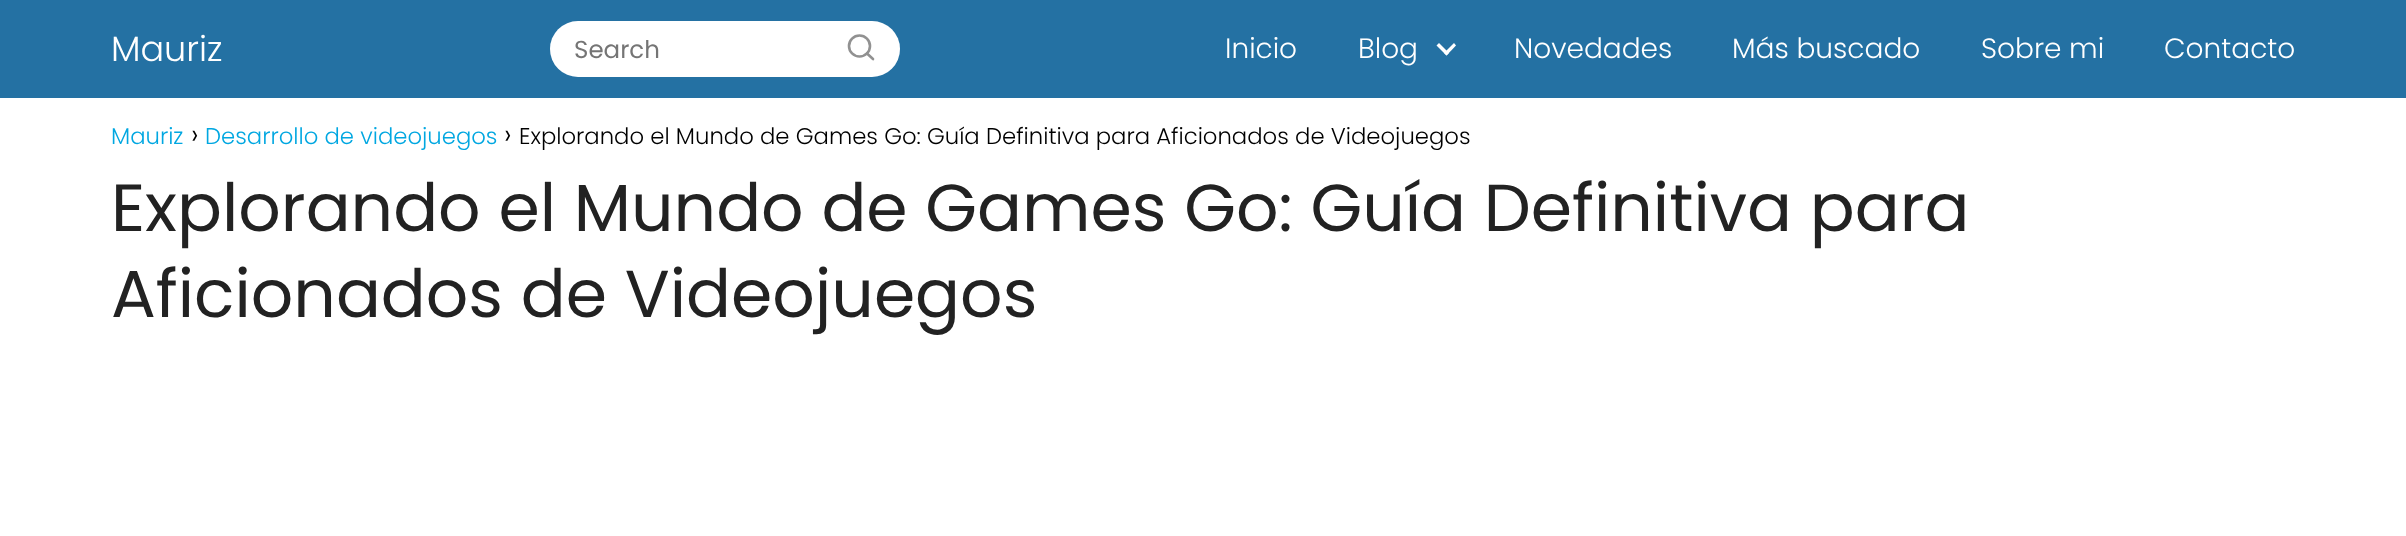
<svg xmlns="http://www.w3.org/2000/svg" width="2406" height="536">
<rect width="100%" height="100%" fill="#fff"/>
<rect width="2406" height="98" fill="#2471a3"/>
<text x="111" y="61" style="font-family:Poppins;font-size:35px;font-weight:300;fill:#fff">Mauriz</text>
<rect x="550" y="21" width="350" height="56" rx="28" fill="#fff"/>
<rect x="551" y="22" width="348" height="54" rx="27" fill="none" stroke="#ffffff26" stroke-width="2"/>
<text x="574" y="58" style="font-family:Poppins;font-size:24.5px;fill:#757575">Search</text>
<circle cx="859.5" cy="46" r="10.5" fill="none" stroke="#919191" stroke-width="2.6"/>
<path d="M873 59l-6-5.5" fill="none" stroke="#919191" stroke-width="2.6" stroke-linecap="round" stroke-linejoin="round"/>
<text x="1225" y="58" style="font-family:Poppins;font-size:28px;font-weight:300;fill:#fff">Inicio</text>
<text x="1358" y="58" style="font-family:Poppins;font-size:28px;font-weight:300;fill:#fff">Blog</text>
<path d="M1454 43l2 2.5l-9.5 10l-2.5-2.5z" fill="#fff"/>
<path d="M1439 43l10 10l-2.5 2.5l-10-10z" fill="#fff"/>
<text x="1514" y="58" style="font-family:Poppins;font-size:28px;font-weight:300;fill:#fff">Novedades</text>
<text x="1732" y="58" style="font-family:Poppins;font-size:28px;font-weight:300;fill:#fff">Más buscado</text>
<text x="1981" y="58" style="font-family:Poppins;font-size:28px;font-weight:300;fill:#fff">Sobre mi</text>
<text x="2164" y="58" style="font-family:Poppins;font-size:28px;font-weight:300;fill:#fff">Contacto</text>
<text x="111" y="144" style="font-family:Poppins;font-size:22.75px;font-weight:300;fill:#00a7e1">Mauriz</text>
<text x="191" y="144" style="font-family:Poppins;font-size:28px;font-weight:300;fill:#000">›</text>
<text x="205" y="144" style="font-family:Poppins;font-size:22.75px;font-weight:300;fill:#00a7e1">Desarrollo de videojuegos</text>
<text x="504" y="144" style="font-family:Poppins;font-size:28px;font-weight:300;fill:#000">›</text>
<text x="519" y="144" style="font-family:Poppins;font-size:22.75px;font-weight:300;fill:#000">Explorando el Mundo de Games Go: Guía Definitiva para Aficionados de Videojuegos</text>
<text x="111" y="231" style="font-family:Poppins;font-size:66.5px;fill:#222">Explorando el Mundo de Games Go: Guía Definitiva para</text>
<text x="111" y="317" style="font-family:Poppins;font-size:66.5px;fill:#222">Aficionados de Videojuegos</text>
</svg>
